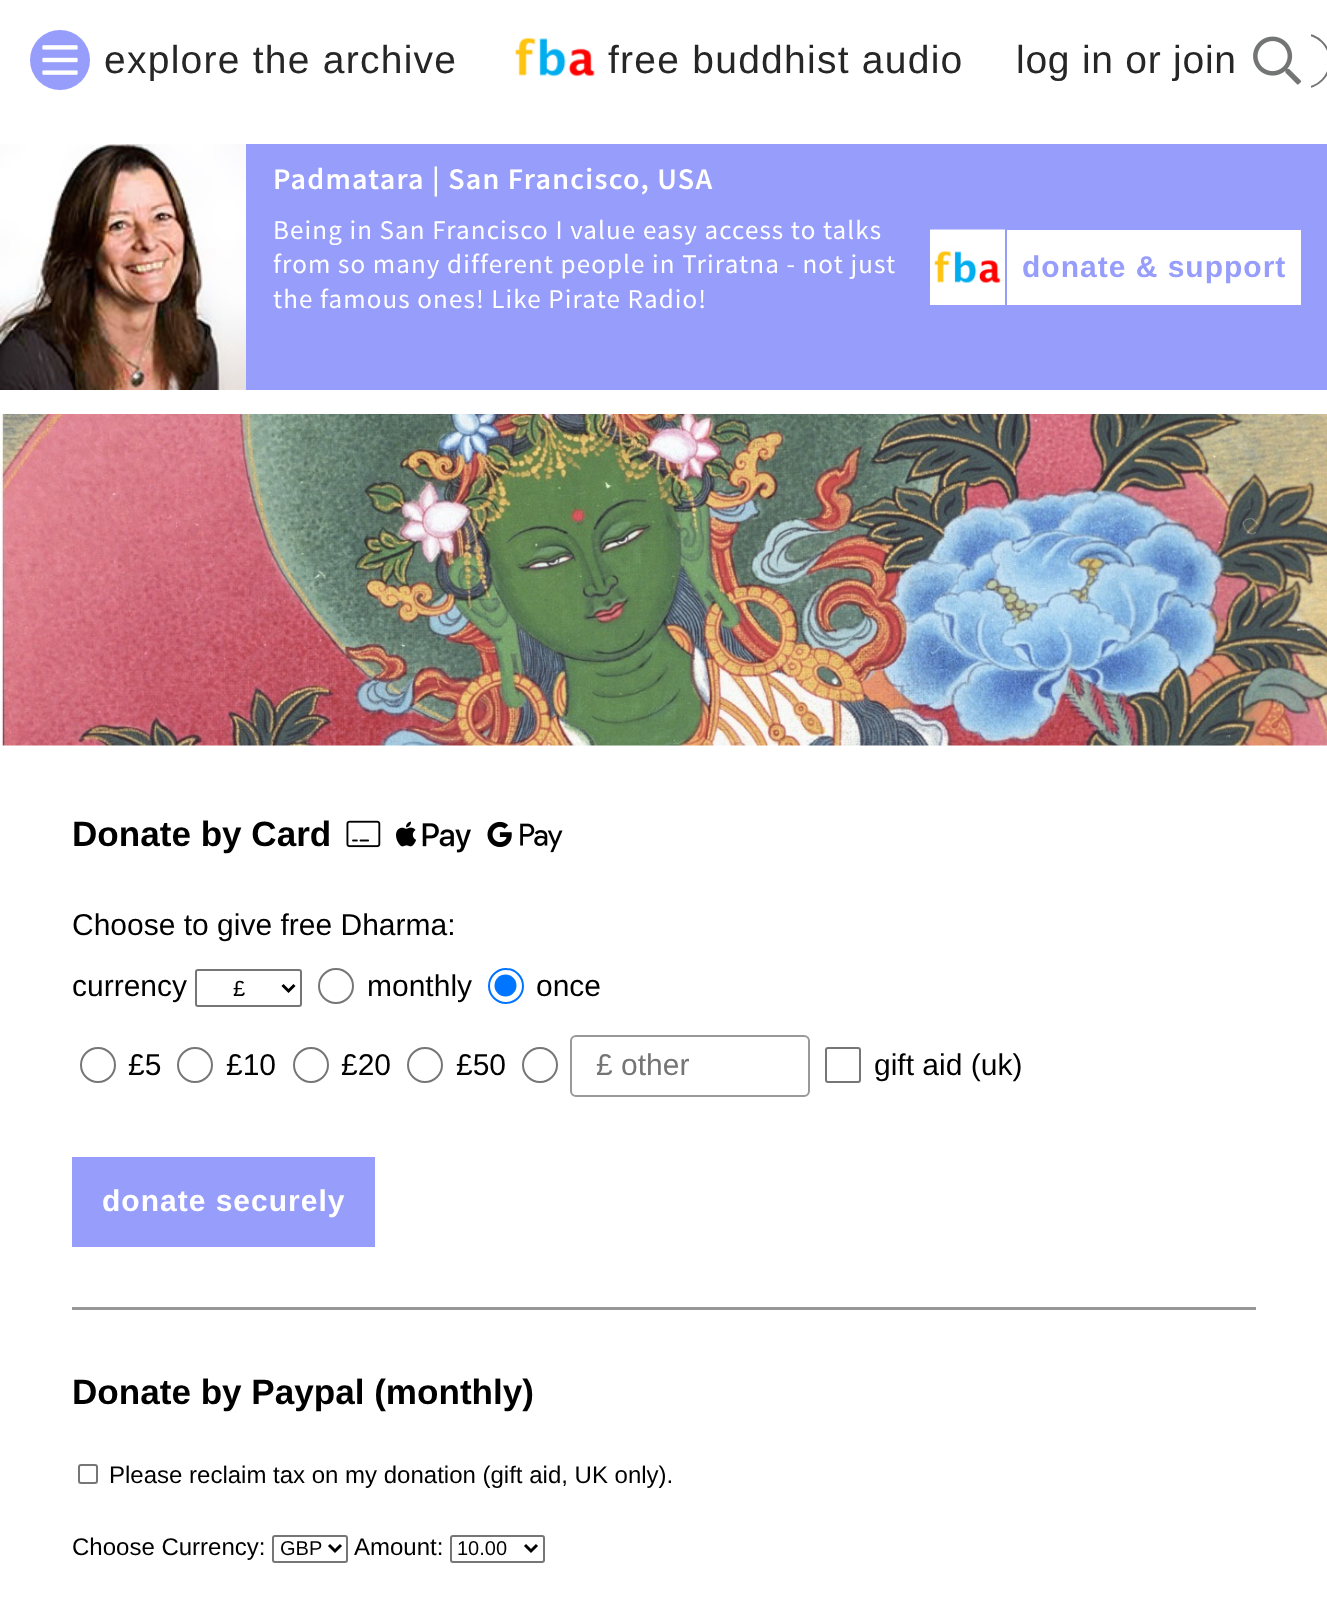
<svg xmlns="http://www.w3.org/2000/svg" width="1327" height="1605">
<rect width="100%" height="100%" fill="#fff"/>
<circle cx="60" cy="60" r="30" fill="#979dfb"/>
<image x="42" y="45" width="36" height="30" href="media/1.png"/>
<text x="104" y="73" style="font-family:Liberation Sans;font-size:39px;letter-spacing:1.25px;fill:#262626">explore the archive</text>
<image x="514" y="37" width="81" height="40" href="media/2.png"/>
<text x="608" y="73" style="font-family:Liberation Sans;font-size:39px;letter-spacing:1.25px;fill:#262626">free buddhist audio</text>
<text x="1016" y="73" style="font-family:Liberation Sans;font-size:39px;letter-spacing:0.75px;fill:#262626">log in or join</text>
<circle cx="1303" cy="61" r="27" fill="none" stroke="#757575" stroke-width="2"/>
<rect x="1275" y="33" width="36" height="56" fill="#fff"/>
<image x="1253" y="36" width="49" height="49" href="media/3.png"/>
<rect x="246" y="144" width="1081" height="246" fill="#979dfb"/>
<image x="0" y="144" width="246" height="246" href="media/4.png"/>
<text x="273" y="189" style="font-family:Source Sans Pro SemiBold;font-size:30px;font-weight:600;letter-spacing:1.25px;fill:#fff">Padmatara | San Francisco, USA</text>
<text x="273" y="239" style="font-family:Source Sans Pro;font-size:27px;letter-spacing:1.12px;fill:#fff">Being in San Francisco I value easy access to talks</text>
<text x="273" y="273" style="font-family:Source Sans Pro;font-size:27px;letter-spacing:1.12px;fill:#fff">from so many different people in Triratna - not just</text>
<text x="273" y="308" style="font-family:Source Sans Pro;font-size:27px;letter-spacing:1.12px;fill:#fff">the famous ones! Like Pirate Radio!</text>
<rect x="930" y="230" width="371" height="75" fill="#fff"/>
<rect x="1005" y="230" width="2" height="75" fill="#979dfb"/>
<image x="930" y="229" width="75" height="55" href="media/5.png"/>
<text x="1022" y="277" style="font-family:Liberation Sans;font-size:30px;font-weight:bold;letter-spacing:1px;fill:#979dfb">donate &amp; support</text>
<image x="0" y="414" width="1327" height="332" href="media/6.png"/>
<rect x="72" y="1307" width="1184" height="3" fill="#979797"/>
<text x="72" y="846" style="font-family:Liberation Sans;font-size:35.1px;font-weight:bold;fill:#000">Donate by Card</text>
<image x="346" y="820" width="35" height="28" href="media/7.png"/>
<image x="396" y="821" width="75" height="32" href="media/8.png"/>
<image x="487" y="821" width="76" height="32" href="media/9.png"/>
<text x="72" y="935" style="font-family:Liberation Sans;font-size:30px;fill:#000">Choose to give free Dharma:</text>
<text x="72" y="996" style="font-family:Liberation Sans;font-size:30px;fill:#000">currency</text>
<rect x="196" y="970" width="105" height="36" rx="2" fill="none" stroke="#767676" stroke-width="2"/>
<path d="M282.5 985l6 6l6-6" fill="none" stroke="#000" stroke-width="3"/>
<text x="233" y="996" style="font-family:Liberation Sans;font-size:22px;fill:#000">£</text>
<circle cx="336" cy="986" r="17" fill="none" stroke="#767676" stroke-width="2"/>
<text x="367" y="996" style="font-family:Liberation Sans;font-size:30px;fill:#000">monthly</text>
<circle cx="506" cy="986" r="17" fill="none" stroke="#0075ff" stroke-width="2"/>
<circle cx="505.5" cy="985.5" r="11" fill="#0075ff"/>
<text x="536" y="996" style="font-family:Liberation Sans;font-size:30px;fill:#000">once</text>
<circle cx="98" cy="1065" r="17" fill="none" stroke="#767676" stroke-width="2"/>
<text x="128" y="1075" style="font-family:Liberation Sans;font-size:30px;fill:#000">£5</text>
<circle cx="195" cy="1065" r="17" fill="none" stroke="#767676" stroke-width="2"/>
<text x="226" y="1075" style="font-family:Liberation Sans;font-size:30px;fill:#000">£10</text>
<circle cx="311" cy="1065" r="17" fill="none" stroke="#767676" stroke-width="2"/>
<text x="341" y="1075" style="font-family:Liberation Sans;font-size:30px;fill:#000">£20</text>
<circle cx="425" cy="1065" r="17" fill="none" stroke="#767676" stroke-width="2"/>
<text x="456" y="1075" style="font-family:Liberation Sans;font-size:30px;fill:#000">£50</text>
<circle cx="540" cy="1065" r="17" fill="none" stroke="#767676" stroke-width="2"/>
<rect x="571" y="1036" width="238" height="60" rx="5" fill="none" stroke="#999" stroke-width="2"/>
<text x="596" y="1075" style="font-family:Liberation Sans;font-size:30px;fill:#757575">£ other</text>
<rect x="826" y="1048" width="34" height="34" rx="2" fill="none" stroke="#767676" stroke-width="2"/>
<text x="874" y="1075" style="font-family:Liberation Sans;font-size:30px;fill:#000">gift aid (uk)</text>
<rect x="72" y="1157" width="303" height="90" fill="#979dfb"/>
<text x="102" y="1211" style="font-family:Liberation Sans;font-size:30px;font-weight:bold;letter-spacing:1px;fill:#fff">donate securely</text>
<text x="72" y="1404" style="font-family:Liberation Sans;font-size:35.1px;font-weight:bold;fill:#000">Donate by Paypal (monthly)</text>
<rect x="79" y="1465" width="18" height="18" rx="2" fill="none" stroke="#767676" stroke-width="2"/>
<text x="109" y="1483" style="font-family:Liberation Sans;font-size:24px;fill:#000">Please reclaim tax on my donation (gift aid, UK only).</text>
<text x="72" y="1555" style="font-family:Liberation Sans;font-size:24px;fill:#000">Choose Currency:</text>
<rect x="273" y="1536" width="74" height="26" rx="2" fill="none" stroke="#767676" stroke-width="2"/>
<path d="M329 1545l6 6l6-6" fill="none" stroke="#000" stroke-width="3"/>
<text x="280" y="1555" style="font-family:Liberation Sans;font-size:20px;fill:#000">GBP</text>
<text x="354" y="1555" style="font-family:Liberation Sans;font-size:24px;fill:#000">Amount:</text>
<rect x="451" y="1536" width="93" height="26" rx="2" fill="none" stroke="#767676" stroke-width="2"/>
<path d="M525 1545l6 6l6-6" fill="none" stroke="#000" stroke-width="3"/>
<text x="457" y="1555" style="font-family:Liberation Sans;font-size:20px;fill:#000">10.00</text>
</svg>
